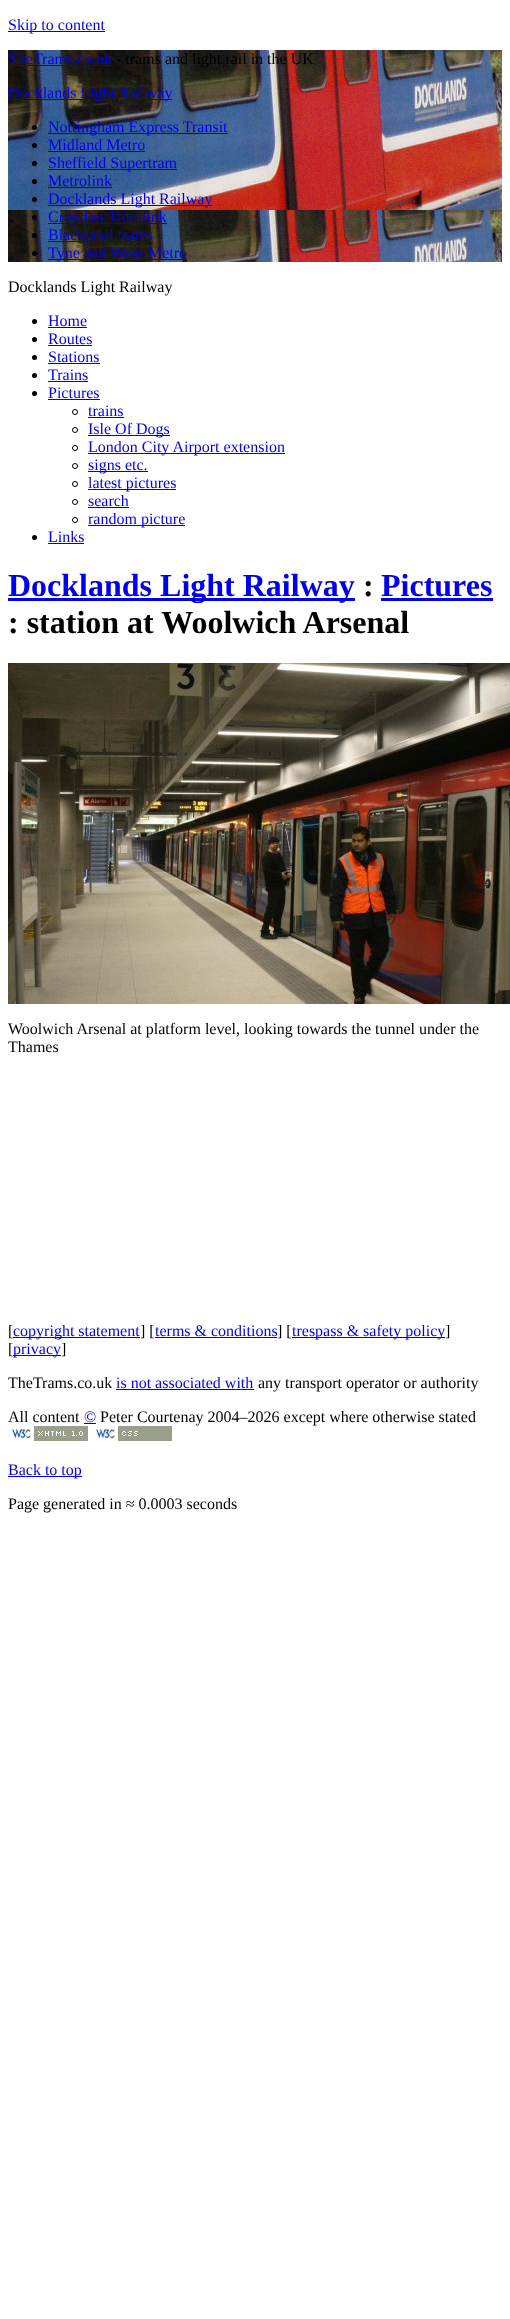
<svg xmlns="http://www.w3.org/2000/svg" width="510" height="2319">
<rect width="100%" height="100%" fill="#fff"/>
<rect x="8" y="31" width="97" height="1" fill="#00e"/>
<text x="8" y="30" style="font-family:Liberation Serif;font-size:16px;fill:#00e">Skip to content</text>
<image x="8" y="50" width="494" height="212" href="media/1.png"/>
<text x="8" y="64" style="font-family:Liberation Serif;font-size:16px;fill:#00e">TheTrams.co.uk</text>
<rect x="8" y="65" width="104" height="1" fill="#00e"/>
<text x="116" y="64" style="font-family:Liberation Serif;font-size:16px;fill:#000">- trams and light rail in the UK</text>
<rect x="8" y="99" width="164" height="1" fill="#00e"/>
<text x="8" y="98" style="font-family:Liberation Serif;font-size:16px;fill:#00e">Docklands Light Railway</text>
<circle cx="34.5" cy="127.5" r="2.5" fill="#000"/>
<rect x="48" y="133" width="180" height="1" fill="#00e"/>
<text x="48" y="132" style="font-family:Liberation Serif;font-size:16px;fill:#00e">Nottingham Express Transit</text>
<circle cx="34.5" cy="145.5" r="2.5" fill="#000"/>
<text x="48" y="150" style="font-family:Liberation Serif;font-size:16px;fill:#00e">Midland Metro</text>
<rect x="48" y="151" width="97" height="1" fill="#00e"/>
<circle cx="34.5" cy="163.5" r="2.5" fill="#000"/>
<rect x="48" y="169" width="129" height="1" fill="#00e"/>
<text x="48" y="168" style="font-family:Liberation Serif;font-size:16px;fill:#00e">Sheffield Supertram</text>
<circle cx="34.5" cy="181.5" r="2.5" fill="#000"/>
<text x="48" y="186" style="font-family:Liberation Serif;font-size:16px;fill:#00e">Metrolink</text>
<rect x="48" y="187" width="64" height="1" fill="#00e"/>
<circle cx="34.5" cy="199.5" r="2.5" fill="#000"/>
<rect x="48" y="205" width="164" height="1" fill="#00e"/>
<text x="48" y="204" style="font-family:Liberation Serif;font-size:16px;fill:#00e">Docklands Light Railway</text>
<circle cx="34.5" cy="217.5" r="2.5" fill="#000"/>
<rect x="48" y="223" width="119" height="1" fill="#00e"/>
<text x="48" y="222" style="font-family:Liberation Serif;font-size:16px;fill:#00e">Croydon Tramlink</text>
<circle cx="34.5" cy="235.5" r="2.5" fill="#000"/>
<rect x="48" y="241" width="105" height="1" fill="#00e"/>
<text x="48" y="240" style="font-family:Liberation Serif;font-size:16px;fill:#00e">Blackpool trams</text>
<circle cx="34.5" cy="253.5" r="2.5" fill="#000"/>
<rect x="48" y="259" width="139" height="1" fill="#00e"/>
<text x="48" y="258" style="font-family:Liberation Serif;font-size:16px;fill:#00e">Tyne and Wear Metro</text>
<text x="8" y="292" style="font-family:Liberation Serif;font-size:16px;fill:#000">Docklands Light Railway</text>
<circle cx="34.5" cy="321.5" r="2.5" fill="#000"/>
<text x="48" y="326" style="font-family:Liberation Serif;font-size:16px;fill:#00e">Home</text>
<rect x="48" y="327" width="39" height="1" fill="#00e"/>
<circle cx="34.5" cy="339.5" r="2.5" fill="#000"/>
<text x="48" y="344" style="font-family:Liberation Serif;font-size:16px;fill:#00e">Routes</text>
<rect x="48" y="345" width="44" height="1" fill="#00e"/>
<circle cx="34.5" cy="357.5" r="2.5" fill="#000"/>
<text x="48" y="362" style="font-family:Liberation Serif;font-size:16px;fill:#00e">Stations</text>
<rect x="48" y="363" width="52" height="1" fill="#00e"/>
<circle cx="34.5" cy="375.5" r="2.5" fill="#000"/>
<text x="48" y="380" style="font-family:Liberation Serif;font-size:16px;fill:#00e">Trains</text>
<rect x="48" y="381" width="40" height="1" fill="#00e"/>
<circle cx="34.5" cy="393.5" r="2.5" fill="#000"/>
<text x="48" y="398" style="font-family:Liberation Serif;font-size:16px;fill:#00e">Pictures</text>
<rect x="48" y="399" width="52" height="1" fill="#00e"/>
<circle cx="75" cy="412" r="2.5" fill="none" stroke="#000"/>
<text x="88" y="416" style="font-family:Liberation Serif;font-size:16px;fill:#00e">trains</text>
<rect x="88" y="417" width="36" height="1" fill="#00e"/>
<circle cx="75" cy="430" r="2.5" fill="none" stroke="#000"/>
<rect x="88" y="435" width="82" height="1" fill="#00e"/>
<text x="88" y="434" style="font-family:Liberation Serif;font-size:16px;fill:#00e">Isle Of Dogs</text>
<circle cx="75" cy="448" r="2.5" fill="none" stroke="#000"/>
<rect x="88" y="453" width="197" height="1" fill="#00e"/>
<text x="88" y="452" style="font-family:Liberation Serif;font-size:16px;fill:#00e">London City Airport extension</text>
<circle cx="75" cy="466" r="2.5" fill="none" stroke="#000"/>
<rect x="88" y="471" width="60" height="1" fill="#00e"/>
<text x="88" y="470" style="font-family:Liberation Serif;font-size:16px;fill:#00e">signs etc.</text>
<circle cx="75" cy="484" r="2.5" fill="none" stroke="#000"/>
<rect x="88" y="489" width="88" height="1" fill="#00e"/>
<text x="88" y="488" style="font-family:Liberation Serif;font-size:16px;fill:#00e">latest pictures</text>
<circle cx="75" cy="502" r="2.5" fill="none" stroke="#000"/>
<text x="88" y="506" style="font-family:Liberation Serif;font-size:16px;fill:#00e">search</text>
<rect x="88" y="507" width="41" height="1" fill="#00e"/>
<circle cx="75" cy="520" r="2.5" fill="none" stroke="#000"/>
<rect x="88" y="525" width="97" height="1" fill="#00e"/>
<text x="88" y="524" style="font-family:Liberation Serif;font-size:16px;fill:#00e">random picture</text>
<circle cx="34.5" cy="537.5" r="2.5" fill="#000"/>
<text x="48" y="542" style="font-family:Liberation Serif;font-size:16px;fill:#00e">Links</text>
<rect x="48" y="543" width="36" height="1" fill="#00e"/>
<rect x="8" y="598" width="347" height="3" fill="#00e"/>
<text x="8" y="596" style="font-family:Liberation Serif;font-size:32px;font-weight:bold;fill:#00e">Docklands Light Railway</text>
<text x="363" y="596" style="font-family:Liberation Serif;font-size:32px;font-weight:bold;fill:#000">:</text>
<text x="381" y="596" style="font-family:Liberation Serif;font-size:32px;font-weight:bold;fill:#00e">Pictures</text>
<rect x="381" y="598" width="112" height="3" fill="#00e"/>
<text x="8" y="633" style="font-family:Liberation Serif;font-size:32px;font-weight:bold;fill:#000">: station at Woolwich Arsenal</text>
<image x="8" y="663" width="502" height="341" href="media/2.png"/>
<text x="8" y="1034" style="font-family:Liberation Serif;font-size:16px;fill:#000">Woolwich Arsenal at platform level, looking towards the tunnel under the</text>
<text x="8" y="1052" style="font-family:Liberation Serif;font-size:16px;fill:#000">Thames</text>
<text x="8" y="1336" style="font-family:Liberation Serif;font-size:16px;fill:#000">[</text>
<rect x="13" y="1337" width="127" height="1" fill="#00e"/>
<text x="13" y="1336" style="font-family:Liberation Serif;font-size:16px;fill:#00e">copyright statement</text>
<text x="140" y="1336" style="font-family:Liberation Serif;font-size:16px;fill:#000">] [</text>
<text x="155" y="1336" style="font-family:Liberation Serif;font-size:16px;fill:#00e">terms &amp; conditions</text>
<rect x="155" y="1337" width="122" height="1" fill="#00e"/>
<text x="277" y="1336" style="font-family:Liberation Serif;font-size:16px;fill:#000">] [</text>
<rect x="292" y="1337" width="153" height="1" fill="#00e"/>
<text x="292" y="1336" style="font-family:Liberation Serif;font-size:16px;fill:#00e">trespass &amp; safety policy</text>
<text x="445" y="1336" style="font-family:Liberation Serif;font-size:16px;fill:#000">]</text>
<text x="8" y="1354" style="font-family:Liberation Serif;font-size:16px;fill:#000">[</text>
<rect x="13" y="1355" width="48" height="1" fill="#00e"/>
<text x="13" y="1354" style="font-family:Liberation Serif;font-size:16px;fill:#00e">privacy</text>
<text x="61" y="1354" style="font-family:Liberation Serif;font-size:16px;fill:#000">]</text>
<text x="8" y="1388" style="font-family:Liberation Serif;font-size:16px;fill:#000">TheTrams.co.uk</text>
<text x="116" y="1388" style="font-family:Liberation Serif;font-size:16px;fill:#00e">is not associated with</text>
<rect x="116" y="1389" width="138" height="1" fill="#00e"/>
<text x="258" y="1388" style="font-family:Liberation Serif;font-size:16px;fill:#000">any transport operator or authority</text>
<text x="8" y="1422" style="font-family:Liberation Serif;font-size:16px;fill:#000">All content</text>
<text x="84" y="1422" style="font-family:Liberation Serif;font-size:16px;fill:#00e">©</text>
<rect x="84" y="1423" width="12" height="1" fill="#00e"/>
<text x="100" y="1422" style="font-family:Liberation Serif;font-size:16px;fill:#000">Peter Courtenay 2004–2026 except where otherwise stated</text>
<image x="12" y="1426" width="76" height="15" href="media/3.png"/>
<image x="96" y="1426" width="76" height="15" href="media/4.png"/>
<rect x="8" y="1476" width="74" height="1" fill="#00e"/>
<text x="8" y="1475" style="font-family:Liberation Serif;font-size:16px;fill:#00e">Back to top</text>
<text x="8" y="1509" style="font-family:Liberation Serif;font-size:16px;fill:#000">Page generated in ≈ 0.0003 seconds</text>
</svg>
